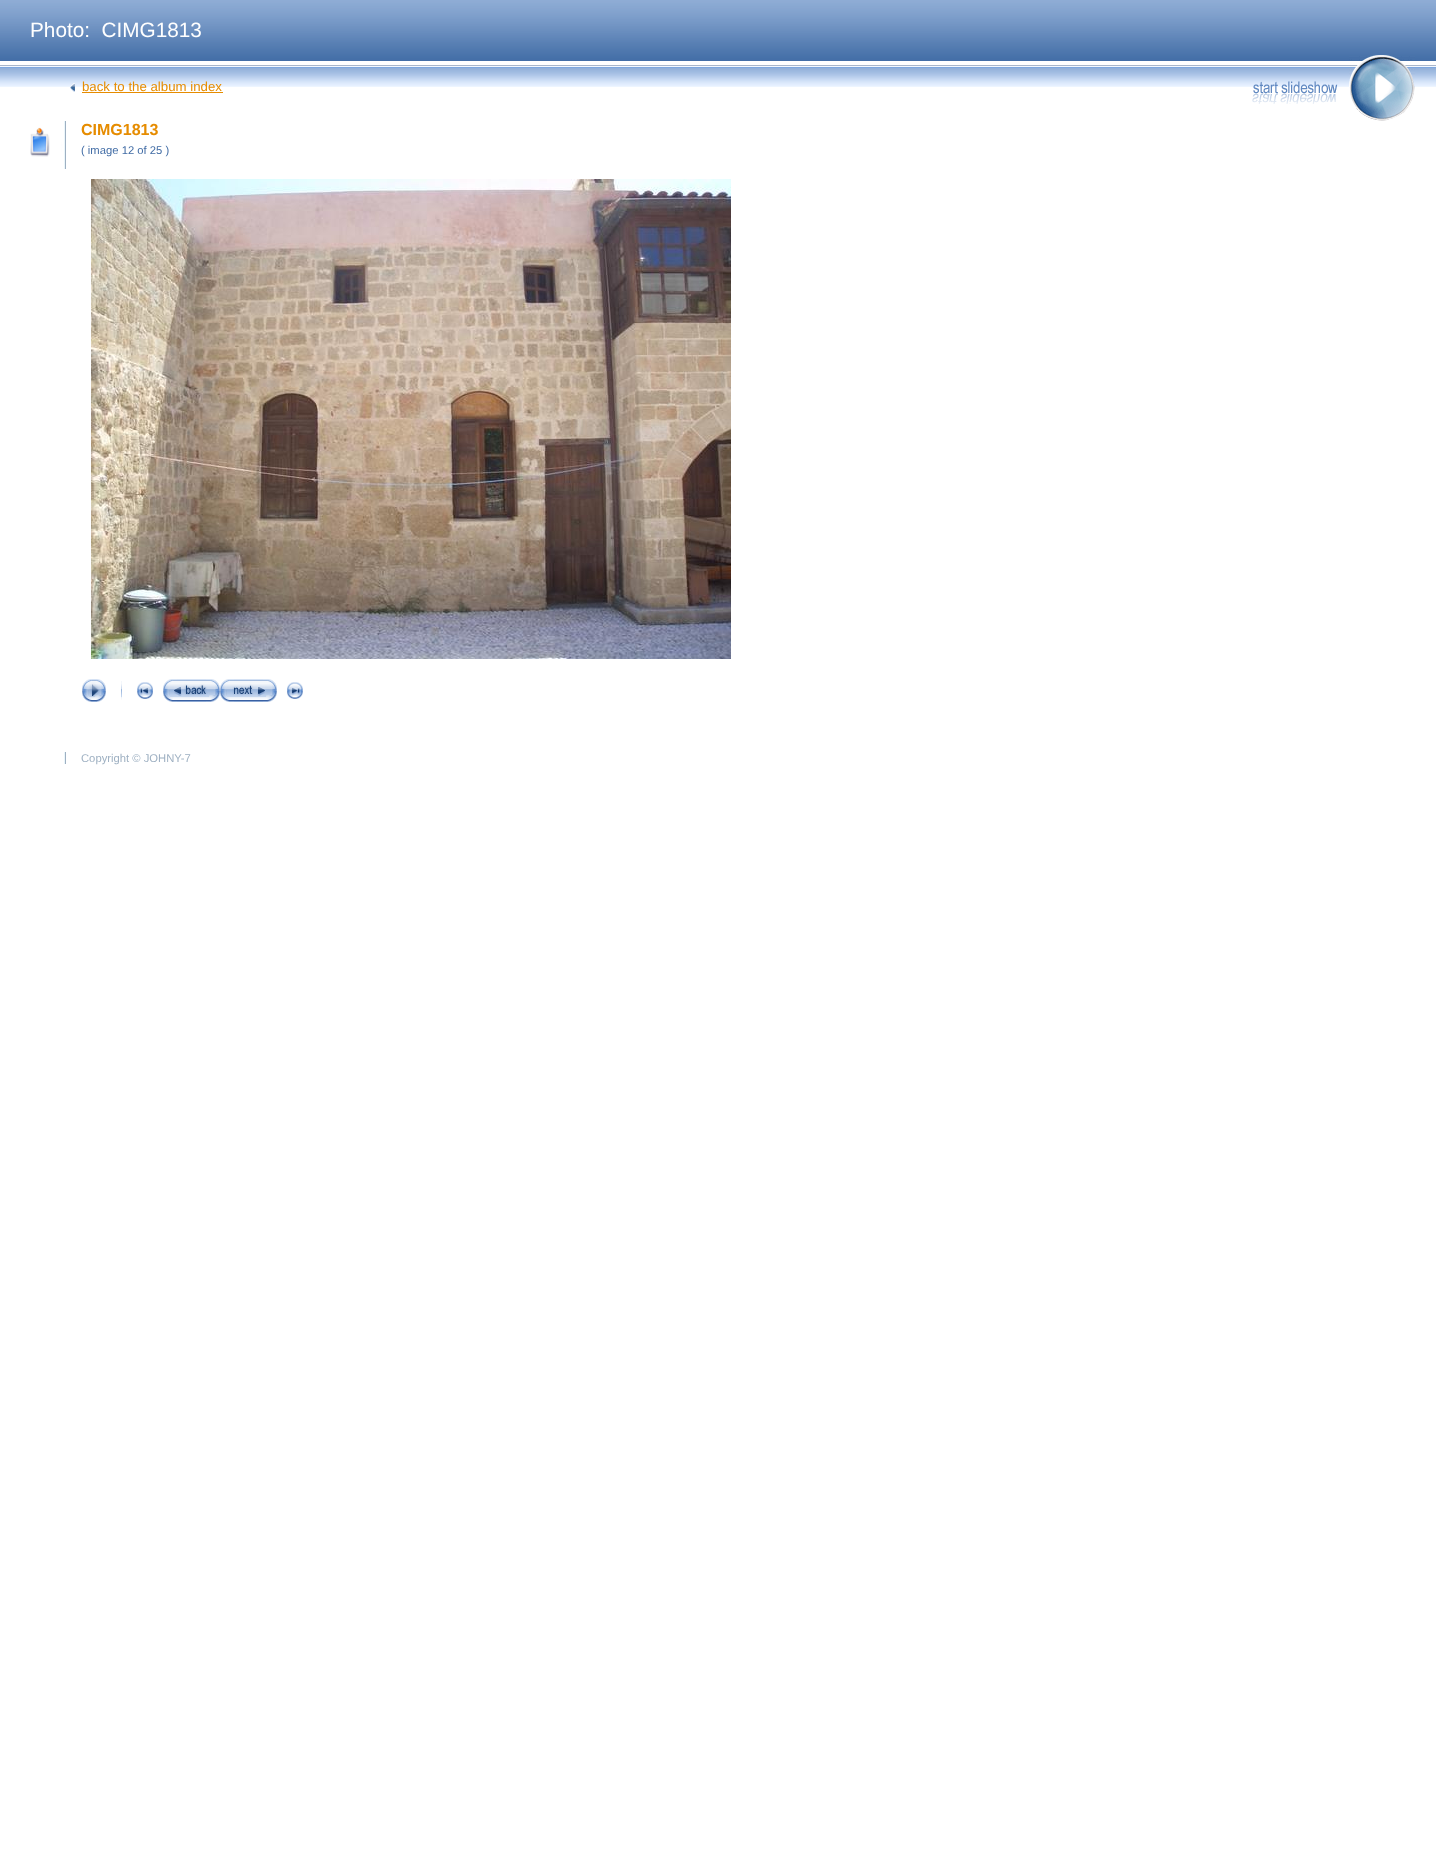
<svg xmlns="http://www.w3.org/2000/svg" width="1436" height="1858">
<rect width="100%" height="100%" fill="#fff"/>
<image x="0" y="0" width="1246" height="121" href="media/1.png"/>
<text x="30" y="37" style="font-family:Liberation Sans;font-size:20.75px;fill:#fff" xml:space="preserve">Photo:  CIMG1813</text>
<image x="70" y="83" width="5" height="9" href="media/2.png"/>
<text x="82" y="91" style="font-family:Liberation Sans;font-size:13.25px;fill:#e68c00">back to the album index</text>
<rect x="82" y="92" width="141" height="1" fill="#e68c00"/>
<image x="1246" y="0" width="190" height="121" href="media/3.png"/>
<image x="1252" y="55" width="163" height="66" href="media/4.png"/>
<image x="30" y="121" width="36" height="48" href="media/5.png"/>
<text x="81" y="135" style="font-family:Liberation Sans;font-size:16px;font-weight:bold;fill:#e68c00">CIMG1813</text>
<text x="81" y="154" style="font-family:Liberation Sans;font-size:11.25px;fill:#416ca5">( image 12 of 25 )</text>
<image x="91" y="179" width="640" height="480" href="media/6.png"/>
<image x="82" y="679" width="24" height="23" href="media/7.png"/>
<image x="121" y="681" width="1" height="19" href="media/8.png"/>
<image x="137" y="682" width="16" height="17" href="media/9.png"/>
<image x="163" y="679" width="57" height="23" href="media/10.png"/>
<image x="220" y="679" width="57" height="23" href="media/11.png"/>
<image x="287" y="682" width="16" height="17" href="media/12.png"/>
<image x="64" y="752" width="2" height="12" href="media/13.png"/>
<text x="81" y="762" style="font-family:Liberation Sans;font-size:11.25px;fill:#9eb0c2">Copyright © JOHNY-7</text>
</svg>
